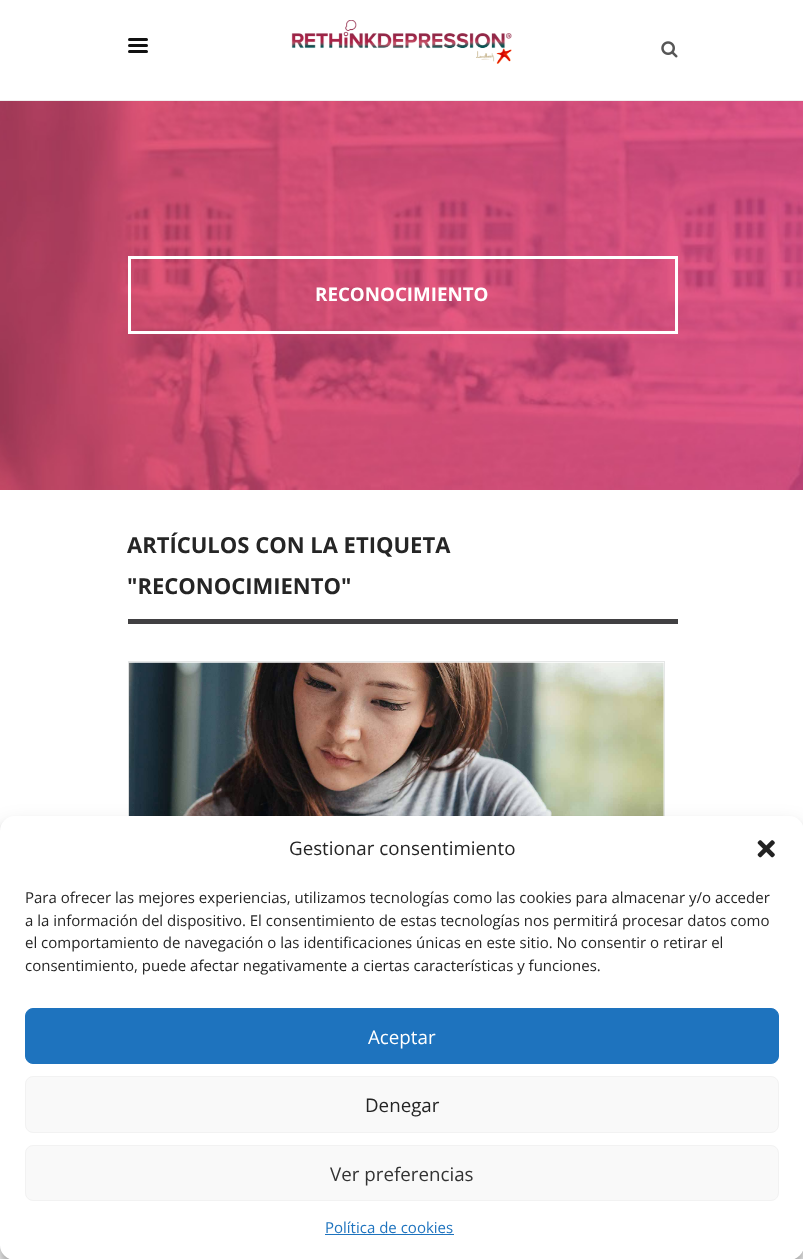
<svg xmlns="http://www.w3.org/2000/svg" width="803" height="1259">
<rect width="100%" height="100%" fill="#fff"/>
<rect y="100" width="803" height="1" fill="#eee"/>
<rect x="128" y="44" width="20" height="3" rx="1.5" fill="#111"/>
<rect x="128" y="38" width="20" height="3" rx="1.5" fill="#111"/>
<rect x="128" y="50" width="20" height="3" rx="1.5" fill="#111"/>
<image x="291" y="20" width="221" height="44" href="media/1.png"/>
<image x="661" y="41" width="17" height="17" href="media/2.png"/>
<image x="0" y="101" width="803" height="389" href="media/3.png"/>
<rect x="129.5" y="257.5" width="547" height="75" fill="none" stroke="#fff" stroke-width="3"/>
<text x="315" y="301" style="font-family:Open Sans;font-size:18.75px;font-weight:bold;fill:#fff">RECONOCIMIENTO</text>
<rect x="128" y="619" width="550" height="5" fill="#414042"/>
<text x="127" y="553" style="font-family:Open Sans;font-size:22px;font-weight:bold;fill:#252525">ARTÍCULOS CON LA ETIQUETA</text>
<text x="127" y="594" style="font-family:Open Sans;font-size:22px;font-weight:bold;fill:#252525">"RECONOCIMIENTO"</text>
<rect x="128.5" y="661.5" width="536" height="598" fill="none" stroke="#e5e7e7"/>
<image x="128" y="662" width="536" height="154" href="media/4.png"/>
<rect y="824" width="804" height="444" rx="15" fill="#0000003b" filter="blur(4px)"/>
<rect y="829" width="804" height="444" rx="15" fill="#00000030" filter="blur(12.5px)"/>
<rect y="816" width="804" height="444" rx="15" fill="#fff"/>
<text x="289" y="855" style="font-family:Open Sans;font-size:18.75px;fill:#252525">Gestionar consentimiento</text>
<image x="757" y="840" width="18" height="18" href="media/5.png"/>
<text x="25" y="903" style="font-family:Open Sans;font-size:15px;fill:#252525">Para ofrecer las mejores experiencias, utilizamos tecnologías como las cookies para almacenar y/o acceder</text>
<text x="25" y="926" style="font-family:Open Sans;font-size:15px;fill:#252525">a la información del dispositivo. El consentimiento de estas tecnologías nos permitirá procesar datos como</text>
<text x="25" y="948" style="font-family:Open Sans;font-size:15px;fill:#252525">el comportamiento de navegación o las identificaciones únicas en este sitio. No consentir o retirar el</text>
<text x="25" y="971" style="font-family:Open Sans;font-size:15px;fill:#252525">consentimiento, puede afectar negativamente a ciertas características y funciones.</text>
<rect x="25.5" y="1008.5" width="753" height="55" rx="7.5" fill="#1e73be" stroke="#1e73be"/>
<text x="368" y="1044" style="font-family:Open Sans;font-size:18.75px;fill:#fff">Aceptar</text>
<rect x="25.5" y="1076.5" width="753" height="56" rx="7.5" fill="#f9f9f9" stroke="#f2f2f2"/>
<text x="365" y="1112" style="font-family:Open Sans;font-size:18.75px;fill:#252525">Denegar</text>
<rect x="25.5" y="1145.5" width="753" height="55" rx="7.5" fill="#f9f9f9" stroke="#f2f2f2"/>
<text x="330" y="1181" style="font-family:Open Sans;font-size:18.75px;fill:#333">Ver preferencias</text>
<text x="325" y="1233" style="font-family:Open Sans;font-size:15px;fill:#1e73be">Política de cookies</text>
<rect x="325" y="1234" width="129" height="1" fill="#1e73be"/>
</svg>
